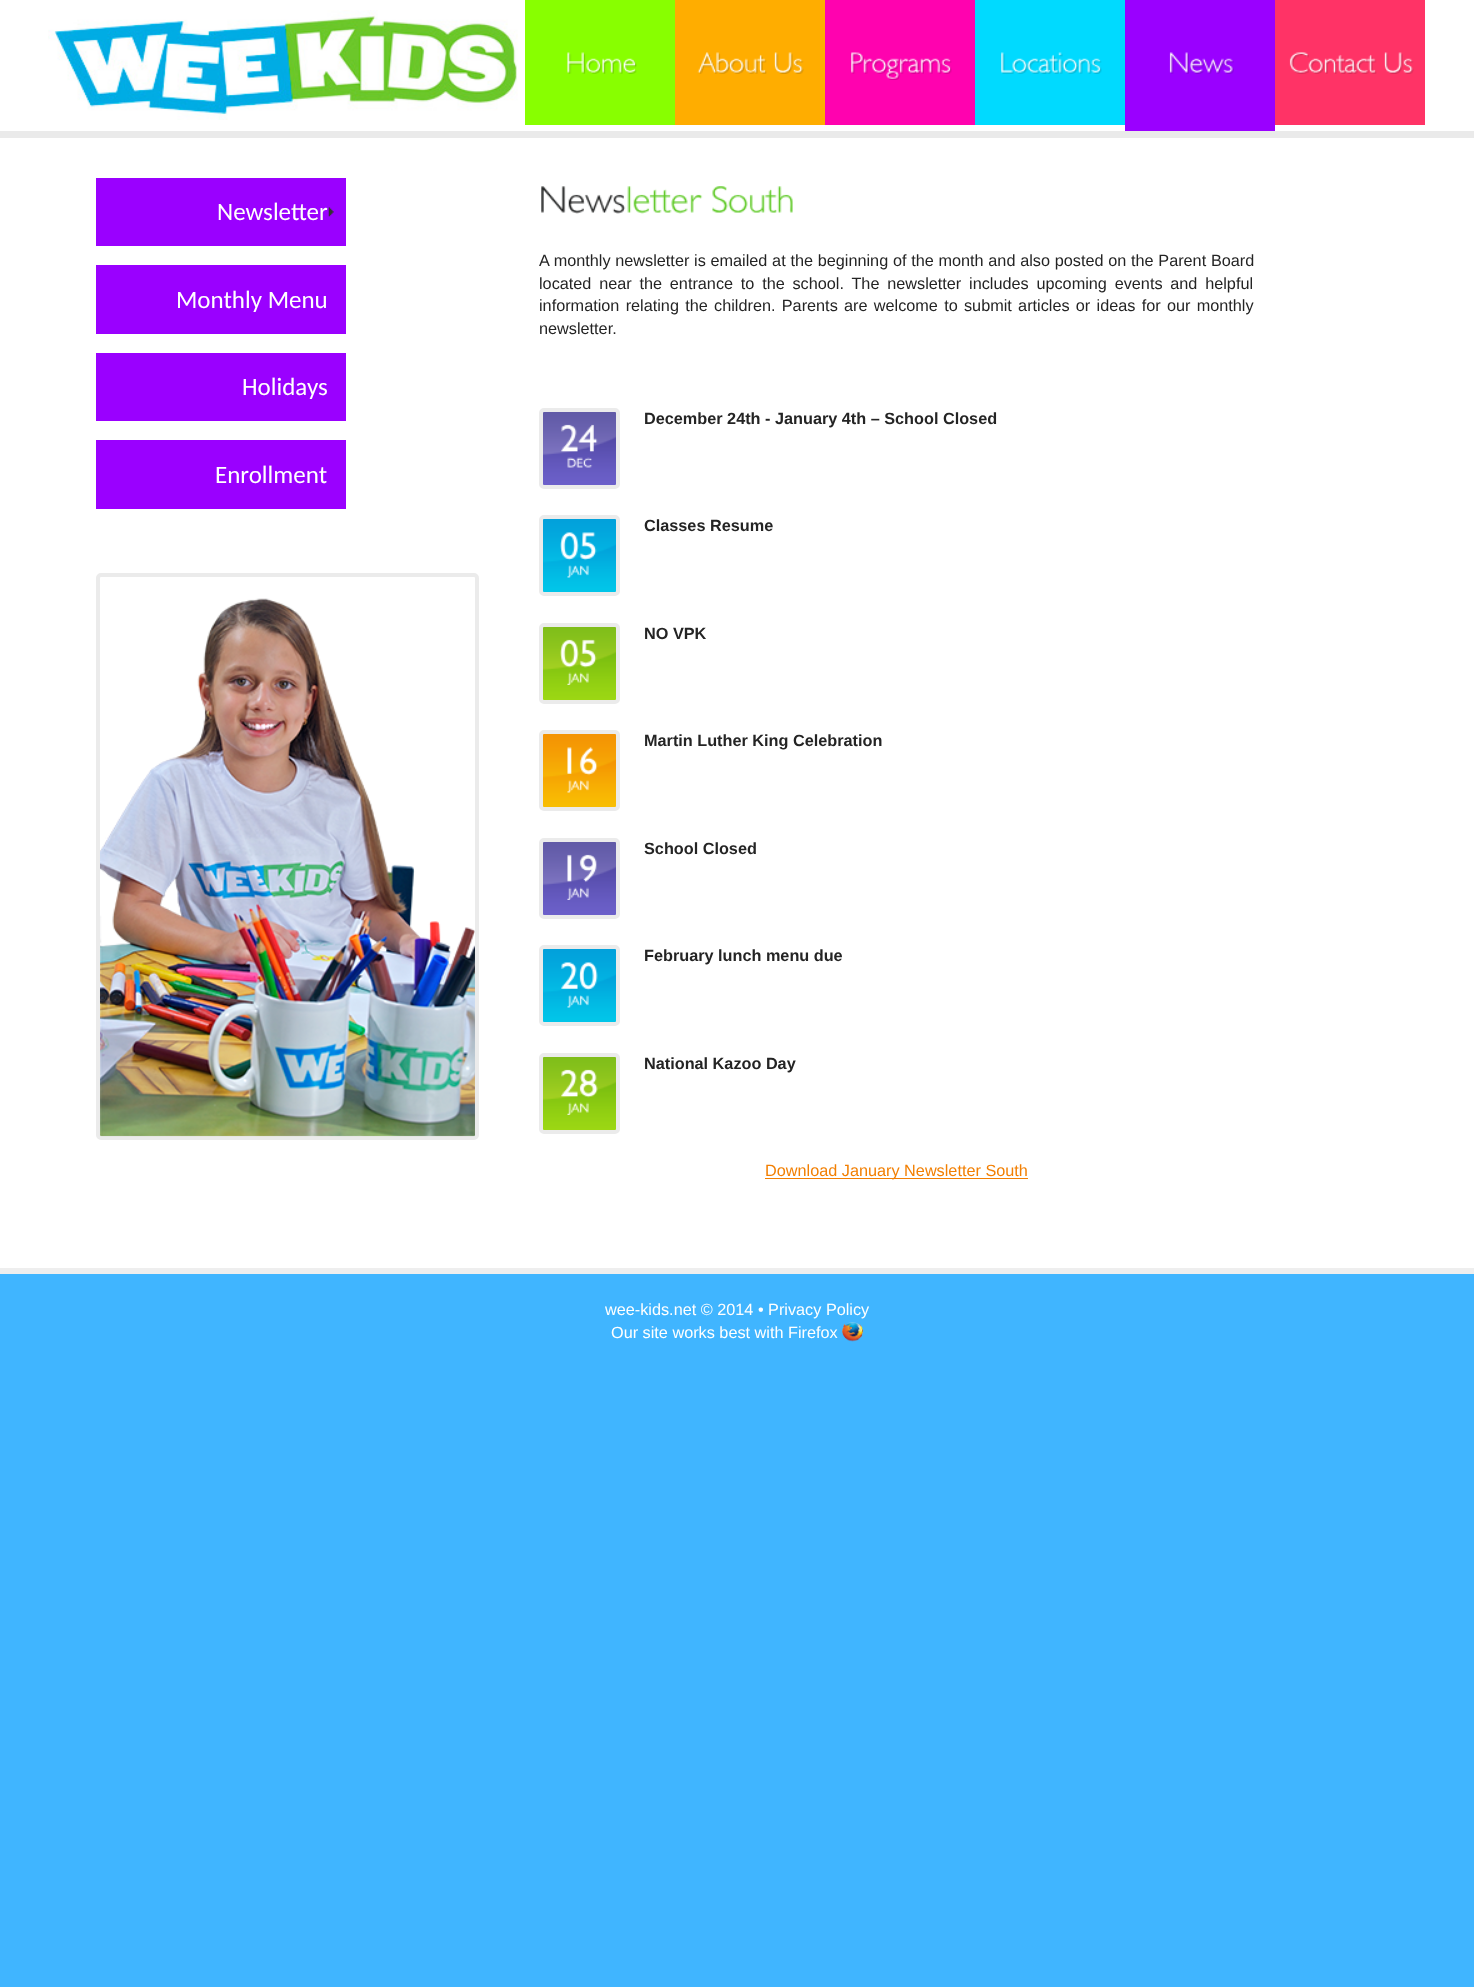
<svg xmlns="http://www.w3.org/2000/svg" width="1474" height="1987">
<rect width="100%" height="100%" fill="#40b5ff"/>
<rect width="1474" height="131" fill="#fff"/>
<image x="48" y="10" width="470" height="110" href="media/1.png"/>
<rect x="525" width="150" height="125" fill="#8f0"/>
<image x="567" y="52" width="70" height="22" href="media/2.png"/>
<rect x="675" width="150" height="125" fill="#ffad00"/>
<image x="697" y="52" width="70" height="22" href="media/3.png"/>
<image x="774" y="52" width="30" height="22" href="media/4.png"/>
<rect x="825" width="150" height="125" fill="#ff02af"/>
<image x="851" y="52" width="101" height="28" href="media/5.png"/>
<rect x="975" width="150" height="125" fill="#00daff"/>
<image x="1001" y="52" width="101" height="22" href="media/6.png"/>
<rect x="1125" width="150" height="131" fill="#9a00ff"/>
<image x="1169" y="52" width="65" height="22" href="media/7.png"/>
<rect x="1275" width="150" height="125" fill="#f36"/>
<image x="1289" y="52" width="88" height="22" href="media/8.png"/>
<image x="1384" y="52" width="30" height="22" href="media/9.png"/>
<rect y="138" width="1474" height="1130" fill="#fff"/>
<rect y="131" width="1474" height="7" fill="#eaeaea"/>
<rect x="96" y="178" width="250" height="68" fill="#9a00ff"/>
<image x="328" y="207" width="6" height="10" href="media/10.png"/>
<text x="217" y="220" style="font-family:Carlito;font-size:25px;fill:#fff">Newsletter</text>
<rect x="96" y="265" width="250" height="69" fill="#9a00ff"/>
<text x="176" y="308" style="font-family:Carlito;font-size:25px;fill:#fff">Monthly Menu</text>
<rect x="96" y="353" width="250" height="68" fill="#9a00ff"/>
<text x="242" y="395" style="font-family:Carlito;font-size:25px;fill:#fff">Holidays</text>
<rect x="96" y="440" width="250" height="69" fill="#9a00ff"/>
<text x="215" y="483" style="font-family:Carlito;font-size:25px;fill:#fff">Enrollment</text>
<rect x="98" y="575" width="379" height="563" rx="3" fill="none" stroke="#ebebeb" stroke-width="4"/>
<image x="100" y="598" width="375" height="539" href="media/11.png"/>
<image x="541" y="186" width="85" height="28" href="media/12.png"/>
<image x="627" y="186" width="76" height="28" href="media/13.png"/>
<image x="712" y="186" width="81" height="27" href="media/14.png"/>
<text x="539" y="266" word-spacing="0.2" style="font-family:Liberation Sans;font-size:16.25px;fill:#242424">A monthly newsletter is emailed at the beginning of the month and also posted on the Parent Board</text>
<text x="539" y="289" word-spacing="3.25" style="font-family:Liberation Sans;font-size:16.25px;fill:#242424">located near the entrance to the school. The newsletter includes upcoming events and helpful</text>
<text x="539" y="311" word-spacing="1.75" style="font-family:Liberation Sans;font-size:16.25px;fill:#242424">information relating the children. Parents are welcome to submit articles or ideas for our monthly</text>
<text x="539" y="334" style="font-family:Liberation Sans;font-size:16.25px;fill:#242424">newsletter.</text>
<image x="543" y="412" width="73" height="73" href="media/15.png"/>
<rect x="541" y="410" width="77" height="77" rx="3" fill="none" stroke="#ebebeb" stroke-width="4"/>
<image x="561" y="424" width="37" height="28" href="media/16.png"/>
<image x="567" y="457" width="26" height="11" href="media/17.png"/>
<text x="644" y="424" style="font-family:Liberation Sans;font-size:16.25px;font-weight:bold;fill:#242424">December 24th - January 4th – School Closed</text>
<image x="543" y="519" width="73" height="73" href="media/18.png"/>
<rect x="541" y="517" width="77" height="77" rx="3" fill="none" stroke="#ebebeb" stroke-width="4"/>
<image x="560" y="532" width="37" height="29" href="media/19.png"/>
<image x="567" y="565" width="22" height="13" href="media/20.png"/>
<text x="644" y="531" style="font-family:Liberation Sans;font-size:16.25px;font-weight:bold;fill:#242424">Classes Resume</text>
<image x="543" y="627" width="73" height="73" href="media/21.png"/>
<rect x="541" y="625" width="77" height="77" rx="3" fill="none" stroke="#ebebeb" stroke-width="4"/>
<image x="560" y="639" width="37" height="29" href="media/22.png"/>
<image x="567" y="672" width="22" height="13" href="media/23.png"/>
<text x="644" y="639" style="font-family:Liberation Sans;font-size:16.25px;font-weight:bold;fill:#242424">NO VPK</text>
<image x="543" y="734" width="73" height="73" href="media/24.png"/>
<rect x="541" y="732" width="77" height="77" rx="3" fill="none" stroke="#ebebeb" stroke-width="4"/>
<image x="567" y="747" width="31" height="29" href="media/25.png"/>
<image x="567" y="780" width="22" height="13" href="media/26.png"/>
<text x="644" y="746" style="font-family:Liberation Sans;font-size:16.25px;font-weight:bold;fill:#242424">Martin Luther King Celebration</text>
<image x="543" y="842" width="73" height="73" href="media/15.png"/>
<rect x="541" y="840" width="77" height="77" rx="3" fill="none" stroke="#ebebeb" stroke-width="4"/>
<image x="567" y="854" width="30" height="29" href="media/27.png"/>
<image x="567" y="887" width="22" height="13" href="media/28.png"/>
<text x="644" y="854" style="font-family:Liberation Sans;font-size:16.25px;font-weight:bold;fill:#242424">School Closed</text>
<image x="543" y="949" width="73" height="73" href="media/18.png"/>
<rect x="541" y="947" width="77" height="77" rx="3" fill="none" stroke="#ebebeb" stroke-width="4"/>
<image x="561" y="962" width="37" height="29" href="media/29.png"/>
<image x="567" y="995" width="22" height="13" href="media/20.png"/>
<text x="644" y="961" style="font-family:Liberation Sans;font-size:16.25px;font-weight:bold;fill:#242424">February lunch menu due</text>
<image x="543" y="1057" width="73" height="73" href="media/21.png"/>
<rect x="541" y="1055" width="77" height="77" rx="3" fill="none" stroke="#ebebeb" stroke-width="4"/>
<image x="561" y="1069" width="37" height="29" href="media/30.png"/>
<image x="567" y="1102" width="22" height="13" href="media/23.png"/>
<text x="644" y="1069" style="font-family:Liberation Sans;font-size:16.25px;font-weight:bold;fill:#242424">National Kazoo Day</text>
<rect x="765" y="1178" width="263" height="1" fill="#f27f02"/>
<text x="765" y="1176" style="font-family:Liberation Sans;font-size:16.25px;fill:#f27f02">Download January Newsletter South</text>
<rect y="1268" width="1474" height="6" fill="#eee"/>
<text x="605" y="1315" style="font-family:Liberation Sans;font-size:16.25px;fill:#fff">wee-kids.net © 2014 • Privacy Policy</text>
<text x="611" y="1338" style="font-family:Liberation Sans;font-size:16.25px;fill:#fff">Our site works best with Firefox</text>
<image x="842" y="1322" width="22" height="20" href="media/31.png"/>
</svg>
